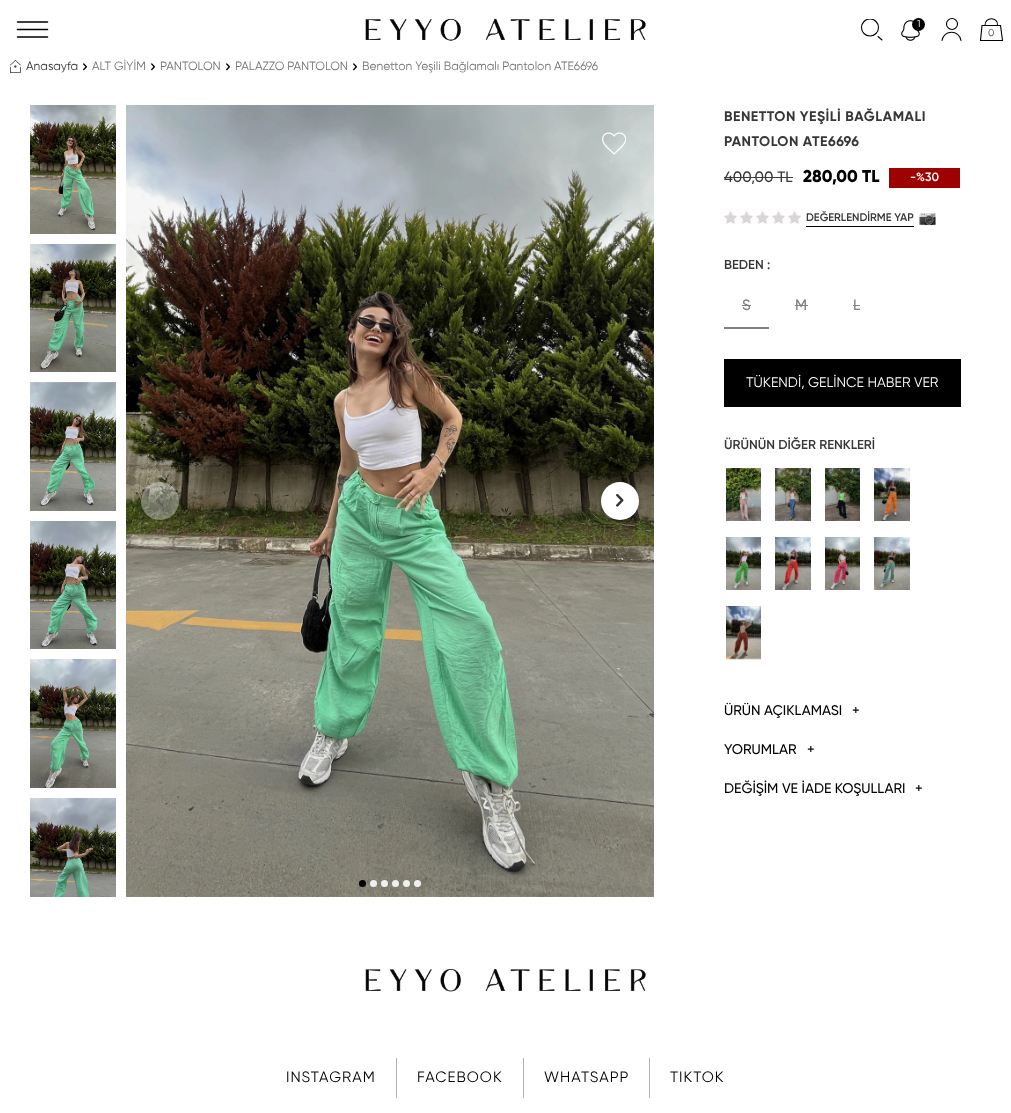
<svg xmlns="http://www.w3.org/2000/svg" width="1011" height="1113">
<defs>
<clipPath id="clip1"><rect x="860" y="19" width="22" height="22"/></clipPath>
</defs>
<rect width="100%" height="100%" fill="#fff"/>
<path d="M17.5 22h30m-30 7.5h30m-30 7.5h30" fill="none" stroke="#000" stroke-width="1.5" stroke-linecap="round" stroke-linejoin="round"/>
<image x="365" y="18" width="281" height="23" href="media/1.png"/>
<g clip-path="url(#clip1)">
<circle cx="870" cy="27.5" r="8.5" fill="none" stroke="#000" stroke-width="1.1"/>
</g>
<path d="M878 36.5l4 3.5" fill="none" stroke="#000" stroke-width="1.1" stroke-linecap="round"/>
<image x="901" y="20" width="19" height="21" href="media/2.png"/>
<circle cx="918.5" cy="24.5" r="6.5" fill="#000"/>
<text x="917" y="27" style="font-family:Gilroy;font-size:10px;fill:#fff">1</text>
<circle cx="952" cy="24" r="5.5" fill="none" stroke="#000" stroke-width="1.1"/>
<path d="M961 40.5c-1.5-11-17.5-11-19 0" fill="none" stroke="#000" stroke-width="1.1" stroke-linecap="round"/>
<path d="M982 25.5l-1.5 15h22l-2-15zm15.5 0c1-9-13-9-12.5 0" fill="none" stroke="#000" stroke-width="1.1" stroke-linecap="round"/>
<text x="988" y="36" style="font-family:Gilroy;font-size:10px;fill:#373738">0</text>
<image x="10" y="60" width="11" height="13" href="media/3.png"/>
<text x="26" y="70" style="font-family:Gilroy;font-size:12px;fill:#373738">Anasayfa</text>
<image x="83" y="63" width="4" height="8" href="media/4.png"/>
<text x="92" y="70" style="font-family:Gilroy;font-size:12px;fill:#747474">ALT GİYİM</text>
<image x="151" y="63" width="4" height="8" href="media/4.png"/>
<text x="160" y="70" style="font-family:Gilroy;font-size:12px;fill:#747474">PANTOLON</text>
<image x="226" y="63" width="4" height="8" href="media/4.png"/>
<text x="235" y="70" style="font-family:Gilroy;font-size:12px;fill:#747474">PALAZZO PANTOLON</text>
<image x="353" y="63" width="4" height="8" href="media/4.png"/>
<text x="362" y="70" style="font-family:Gilroy;font-size:12px;fill:#747474">Benetton Yeşili Bağlamalı Pantolon ATE6696</text>
<image x="30" y="105" width="86" height="129" href="media/5.png"/>
<image x="30" y="244" width="86" height="128" href="media/6.png"/>
<image x="30" y="382" width="86" height="129" href="media/7.png"/>
<image x="30" y="521" width="86" height="128" href="media/8.png"/>
<image x="30" y="659" width="86" height="129" href="media/9.png"/>
<image x="30" y="798" width="86" height="99" href="media/10.png"/>
<image x="126" y="105" width="528" height="792" href="media/11.png"/>
<circle cx="160" cy="501" r="19" fill="#ffffff59"/>
<image x="156" y="494" width="8" height="13" href="media/12.png"/>
<rect x="601" y="483" width="38" height="38" rx="19" fill="#0000003d" filter="blur(2.5px)"/>
<circle cx="620" cy="501" r="19" fill="#fff"/>
<image x="616" y="493" width="8" height="14" href="media/13.png"/>
<circle cx="362.5" cy="883.5" r="3.5" fill="#000"/>
<circle cx="373.5" cy="883.5" r="3.5" fill="#f0f0f0"/>
<circle cx="384.5" cy="883.5" r="3.5" fill="#f0f0f0"/>
<circle cx="395.5" cy="883.5" r="3.5" fill="#f0f0f0"/>
<circle cx="406.5" cy="883.5" r="3.5" fill="#f0f0f0"/>
<circle cx="417.5" cy="883.5" r="3.5" fill="#f0f0f0"/>
<image x="602" y="132" width="25" height="23" href="media/14.png"/>
<text x="724" y="121" style="font-family:Gilroy;font-size:14px;font-weight:bold;letter-spacing:0.5px;fill:#373738">BENETTON YEŞİLİ BAĞLAMALI</text>
<text x="724" y="146" style="font-family:Gilroy;font-size:14px;font-weight:bold;letter-spacing:0.5px;fill:#373738">PANTOLON ATE6696</text>
<text x="724" y="182" style="font-family:Gilroy;font-size:15px;font-weight:500;fill:#373738">400,00 TL</text>
<rect x="724" y="177" width="69" height="1" fill="#3c3c3c"/>
<text x="803" y="182" style="font-family:Gilroy;font-size:17px;font-weight:800;fill:#000">280,00 TL</text>
<rect x="889" y="168" width="71" height="20" fill="#9d0100"/>
<text x="910" y="181" style="font-family:Gilroy;font-size:12px;font-weight:600;fill:#fff">-%30</text>
<image x="724" y="211" width="13" height="13" href="media/15.png"/>
<image x="740" y="211" width="13" height="13" href="media/15.png"/>
<image x="756" y="211" width="13" height="13" href="media/15.png"/>
<image x="772" y="211" width="13" height="13" href="media/15.png"/>
<image x="788" y="211" width="13" height="13" href="media/15.png"/>
<rect x="806" y="226" width="108" height="1" fill="#000"/>
<text x="806" y="221" style="font-family:Gilroy;font-size:11px;font-weight:600;fill:#373738">DEĞERLENDİRME YAP</text>
<image x="919" y="213" width="17" height="13" href="media/16.png"/>
<text x="724" y="269" style="font-family:Gilroy;font-size:13px;font-weight:600;fill:#373738">BEDEN :</text>
<rect x="724" y="327" width="45" height="2" fill="#808080"/>
<text x="742" y="310" style="font-family:Gilroy;font-size:15px;font-weight:500;fill:#808080">S</text>
<rect x="742" y="305" width="9" height="1" fill="#808080"/>
<text x="795" y="310" style="font-family:Gilroy;font-size:15px;font-weight:500;fill:#808080">M</text>
<rect x="795" y="305" width="13" height="1" fill="#808080"/>
<text x="853" y="310" style="font-family:Gilroy;font-size:15px;font-weight:500;fill:#808080">L</text>
<rect x="853" y="305" width="7" height="1" fill="#808080"/>
<rect x="724" y="359" width="237" height="48" fill="#000"/>
<text x="746" y="387" style="font-family:Gilroy;font-size:14px;fill:#fff">TÜKENDİ, GELİNCE HABER VER</text>
<text x="724" y="449" style="font-family:Gilroy;font-size:13px;font-weight:600;fill:#373738">ÜRÜNÜN DİĞER RENKLERİ</text>
<image x="726" y="468" width="35" height="53" href="media/17.png"/>
<image x="775" y="468" width="36" height="53" href="media/18.png"/>
<image x="825" y="468" width="35" height="53" href="media/19.png"/>
<image x="874" y="468" width="36" height="53" href="media/20.png"/>
<image x="726" y="537" width="35" height="53" href="media/21.png"/>
<image x="775" y="537" width="36" height="53" href="media/22.png"/>
<image x="825" y="537" width="35" height="53" href="media/23.png"/>
<image x="874" y="537" width="36" height="53" href="media/24.png"/>
<image x="726" y="606" width="35" height="54" href="media/25.png"/>
<text x="724" y="715" style="font-family:Gilroy;font-size:14px;font-weight:500;fill:#000">ÜRÜN AÇIKLAMASI</text>
<text x="852" y="715" style="font-family:Gilroy;font-size:14px;font-weight:500;fill:#000">+</text>
<text x="724" y="754" style="font-family:Gilroy;font-size:14px;font-weight:500;fill:#000">YORUMLAR</text>
<text x="807" y="754" style="font-family:Gilroy;font-size:14px;font-weight:500;fill:#000">+</text>
<text x="724" y="793" style="font-family:Gilroy;font-size:14px;font-weight:500;fill:#000">DEĞİŞİM VE İADE KOŞULLARI</text>
<text x="915" y="793" style="font-family:Gilroy;font-size:14px;font-weight:500;fill:#000">+</text>
<image x="365" y="969" width="281" height="23" href="media/26.png"/>
<rect x="396" y="1058" width="1" height="40" fill="#b1b1b1"/>
<text x="286" y="1082" style="font-family:Gilroy;font-size:15px;letter-spacing:1px;fill:#000">INSTAGRAM</text>
<rect x="523" y="1058" width="1" height="40" fill="#b1b1b1"/>
<text x="417" y="1082" style="font-family:Gilroy;font-size:15px;letter-spacing:1px;fill:#000">FACEBOOK</text>
<rect x="649" y="1058" width="1" height="40" fill="#b1b1b1"/>
<text x="544" y="1082" style="font-family:Gilroy;font-size:15px;letter-spacing:1px;fill:#000">WHATSAPP</text>
<text x="670" y="1082" style="font-family:Gilroy;font-size:15px;letter-spacing:1px;fill:#000">TIKTOK</text>
</svg>
